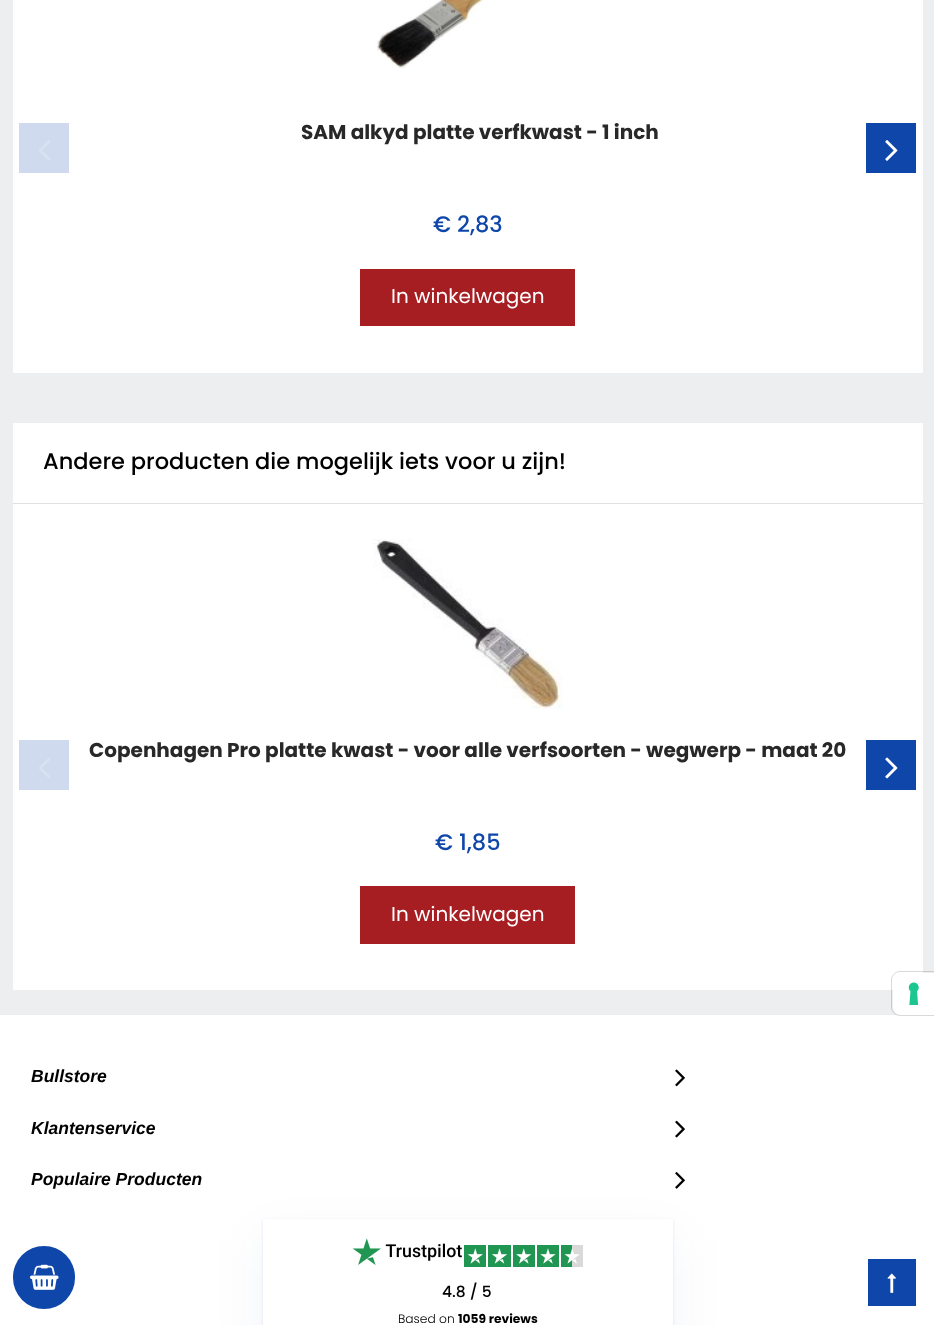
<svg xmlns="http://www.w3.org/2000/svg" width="934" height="1325">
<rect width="100%" height="100%" fill="#edeeef"/>
<rect x="13" width="910" height="373" fill="#fff"/>
<rect x="19" y="123" width="50" height="50" fill="#cfdaee"/>
<image x="38" y="140" width="13" height="21" href="media/1.png"/>
<rect x="866" y="123" width="50" height="50" fill="#0e46a9"/>
<image x="885" y="140" width="13" height="21" href="media/2.png"/>
<image x="377" y="0" width="107" height="69" href="media/3.png"/>
<text x="301" y="139" style="font-family:Poppins;font-size:20px;font-weight:bold;fill:#282828">SAM alkyd platte verfkwast - 1 inch</text>
<text x="433" y="232" style="font-family:Poppins;font-size:22.5px;font-weight:500;fill:#0e46a9">€ 2,83</text>
<rect x="360" y="269" width="215" height="57" fill="#a61e22"/>
<text x="391" y="303" style="font-family:Poppins;font-size:20px;fill:#fff">In winkelwagen</text>
<rect x="13" y="423" width="910" height="80" fill="#fff"/>
<rect x="13" y="503" width="910" height="1" fill="#e0e0e0"/>
<text x="43" y="469" style="font-family:Poppins;font-size:22.5px;font-weight:500;fill:#000">Andere producten die mogelijk iets voor u zijn!</text>
<rect x="13" y="504" width="910" height="486" fill="#fff"/>
<rect x="19" y="740" width="50" height="50" fill="#cfdaee"/>
<image x="39" y="758" width="12" height="20" href="media/4.png"/>
<rect x="866" y="740" width="50" height="50" fill="#0e46a9"/>
<image x="885" y="757" width="13" height="22" href="media/5.png"/>
<image x="372" y="539" width="191" height="170" href="media/6.png"/>
<text x="89" y="757" style="font-family:Poppins;font-size:20px;font-weight:bold;fill:#282828">Copenhagen Pro platte kwast - voor alle verfsoorten - wegwerp - maat 20</text>
<text x="435" y="850" style="font-family:Poppins;font-size:22.5px;font-weight:500;fill:#0e46a9">€ 1,85</text>
<rect x="360" y="886" width="215" height="58" fill="#a61e22"/>
<text x="391" y="921" style="font-family:Poppins;font-size:20px;fill:#fff">In winkelwagen</text>
<rect y="1015" width="934" height="310" fill="#fff"/>
<text x="31" y="1082" style="font-family:Liberation Sans;font-size:17.5px;font-weight:bold;font-style:italic;fill:#000">Bullstore</text>
<image x="675" y="1069" width="10" height="18" href="media/7.png"/>
<text x="31" y="1134" style="font-family:Liberation Sans;font-size:17.5px;font-weight:bold;font-style:italic;fill:#000">Klantenservice</text>
<image x="675" y="1120" width="10" height="18" href="media/8.png"/>
<rect x="263" y="1240" width="410" height="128" fill="#062f7d0d" filter="blur(26px)"/>
<text x="31" y="1185" style="font-family:Liberation Sans;font-size:17.5px;font-weight:bold;font-style:italic;fill:#000">Populaire Producten</text>
<image x="675" y="1172" width="10" height="17" href="media/9.png"/>
<rect x="263" y="1220" width="410" height="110" fill="#0704921a" filter="blur(1.5px)"/>
<rect x="263" y="1219" width="410" height="106" fill="#fff"/>
<image x="352" y="1238" width="110" height="27" href="media/10.png"/>
<image x="464" y="1245" width="119" height="22" href="media/11.png"/>
<text x="442" y="1297" style="font-family:Poppins;font-size:15.5px;font-weight:500;fill:#000">4.8 / 5</text>
<text x="398" y="1323" style="font-family:Poppins;font-size:12.25px;font-weight:300;fill:#000">Based on</text>
<text x="458" y="1323" style="font-family:Poppins;font-size:12.25px;font-weight:bold;fill:#000">1059 reviews</text>
<rect x="13" y="1246" width="62" height="63" rx="31" fill="#0e46a9"/>
<image x="30" y="1264" width="29" height="26" href="media/12.png"/>
<rect x="868" y="1259" width="48" height="47" fill="#0e46a9"/>
<image x="887" y="1273" width="9" height="20" href="media/13.png"/>
<path d="M900 971.5h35.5v44h-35.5c-4.5 0-8.5-4-8.5-8.5v-27c0-4.5 4-8.5 8.5-8.5z" fill="none" stroke="#00000026"/>
<path d="M901 973h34v42h-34c-4.5 0-8-3.5-8-8v-26c0-4.5 3.5-8 8-8z" fill="#fff"/>
<image x="908" y="982" width="11" height="23" href="media/14.png"/>
</svg>
